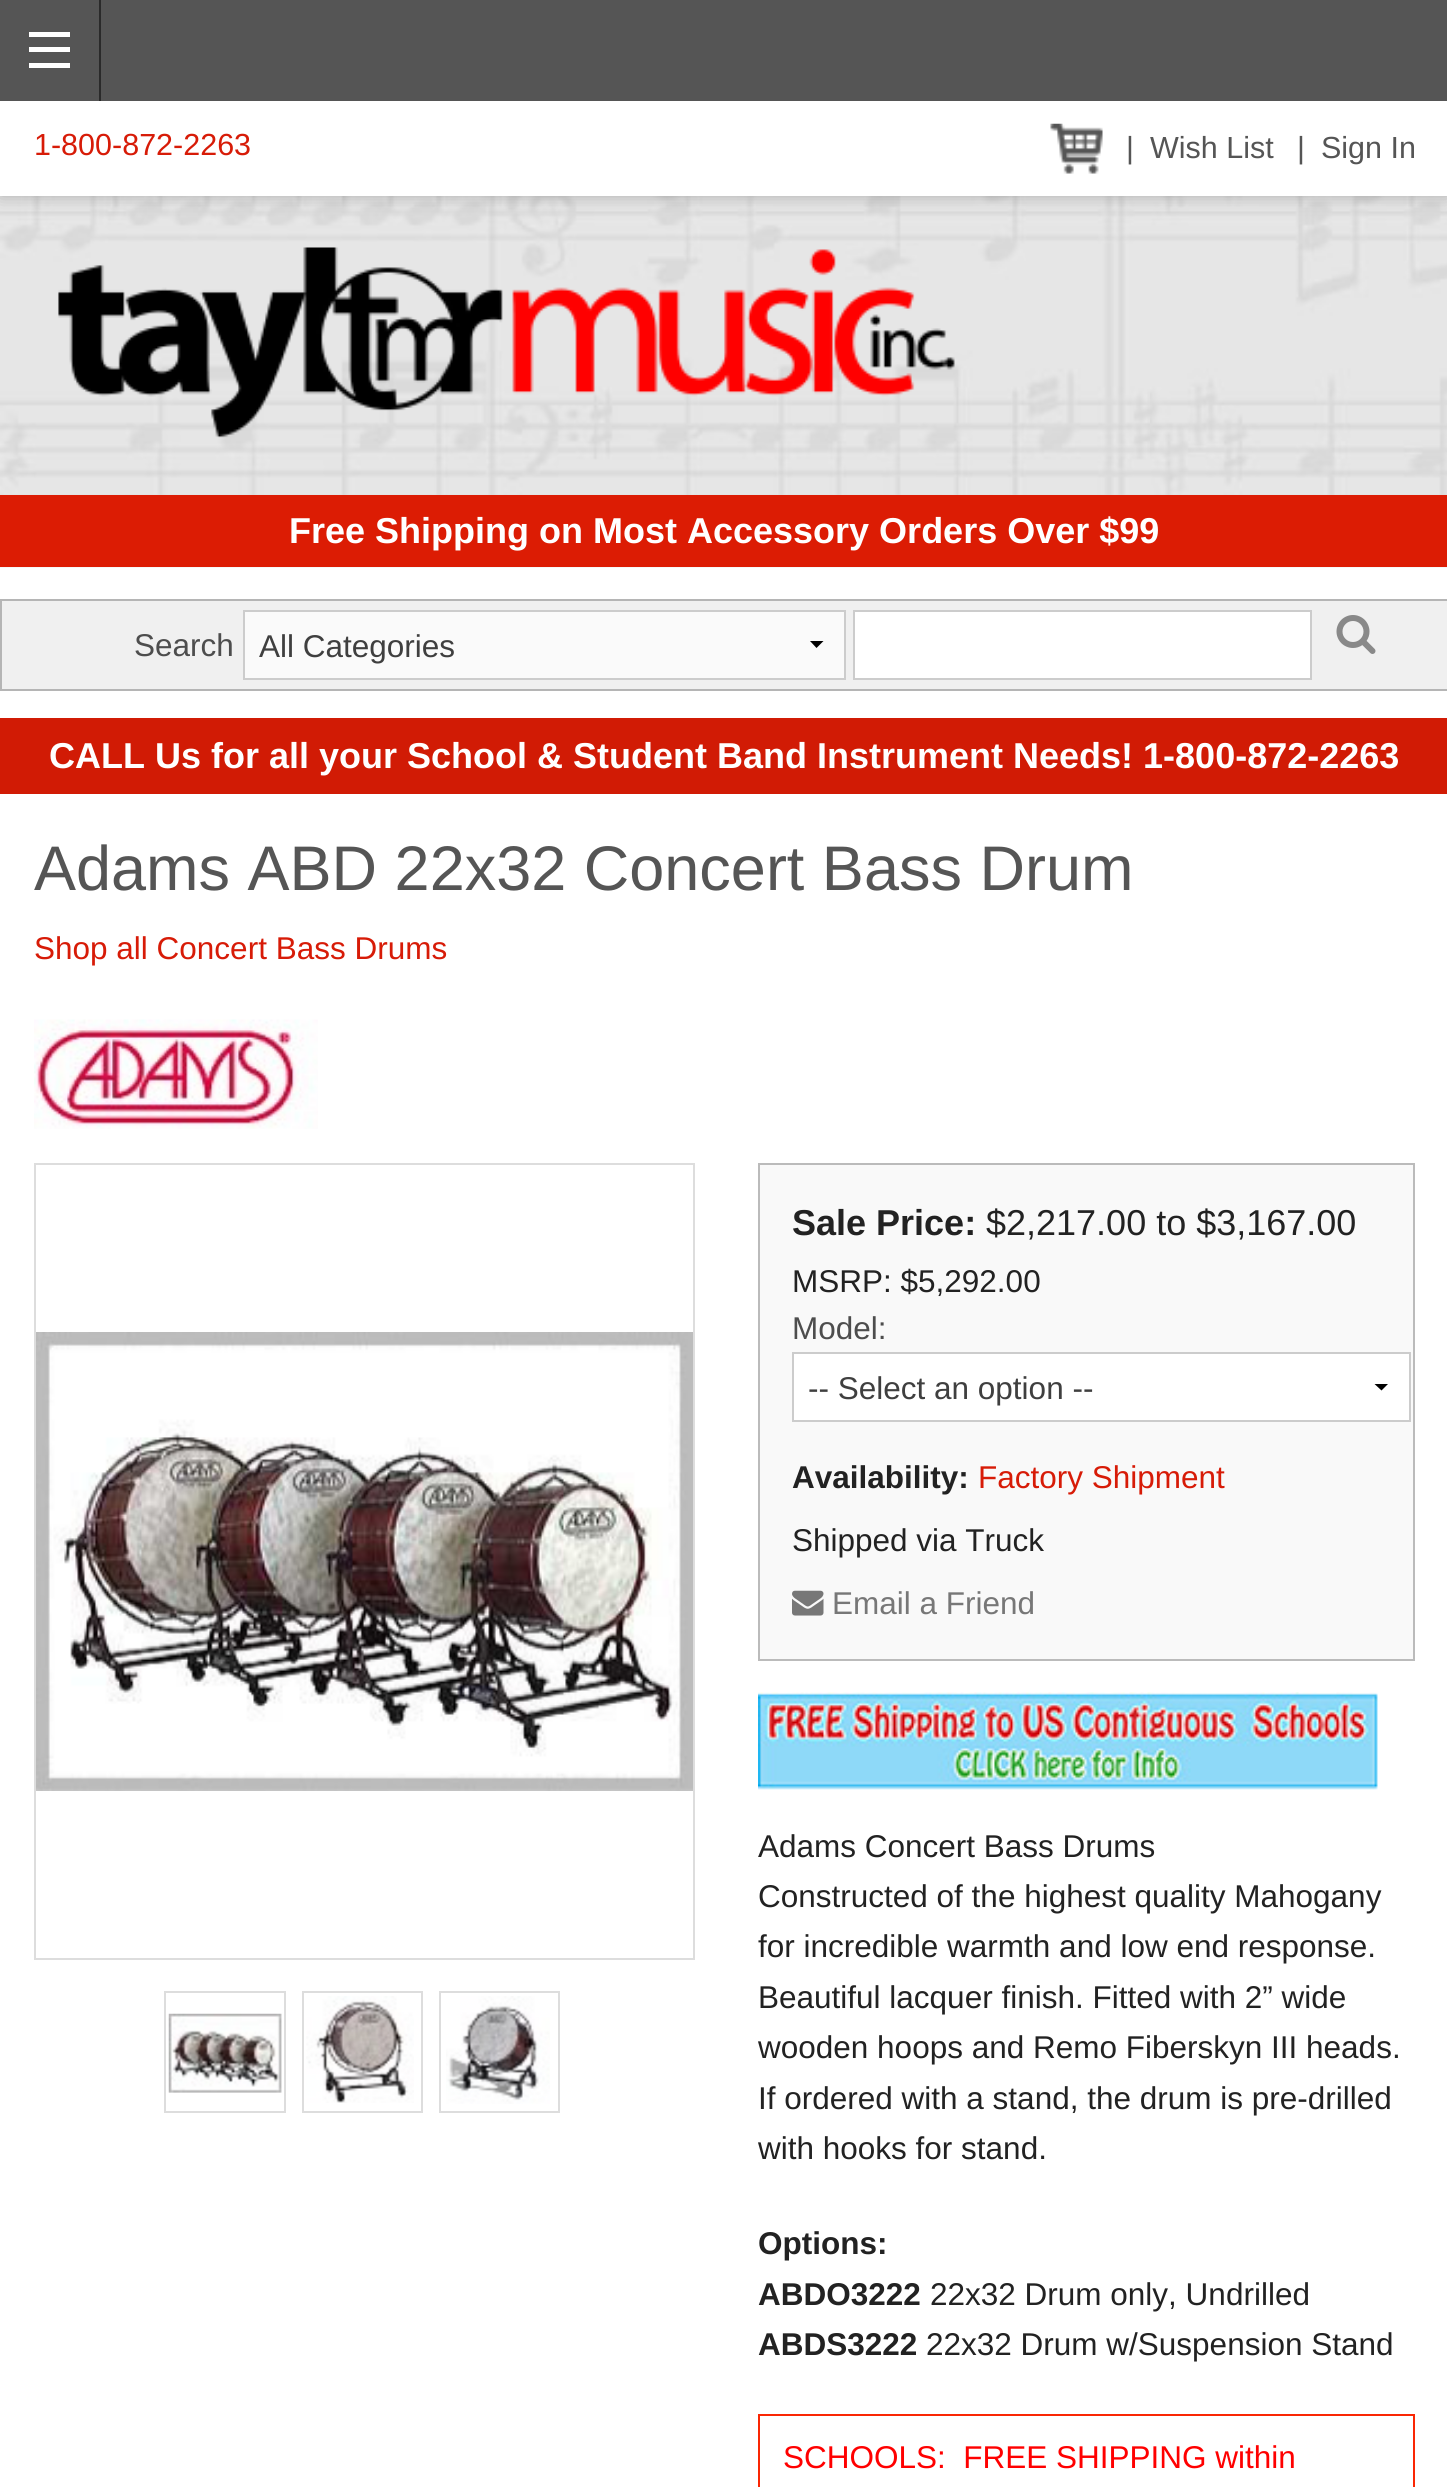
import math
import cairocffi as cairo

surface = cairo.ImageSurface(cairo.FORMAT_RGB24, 1447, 2487)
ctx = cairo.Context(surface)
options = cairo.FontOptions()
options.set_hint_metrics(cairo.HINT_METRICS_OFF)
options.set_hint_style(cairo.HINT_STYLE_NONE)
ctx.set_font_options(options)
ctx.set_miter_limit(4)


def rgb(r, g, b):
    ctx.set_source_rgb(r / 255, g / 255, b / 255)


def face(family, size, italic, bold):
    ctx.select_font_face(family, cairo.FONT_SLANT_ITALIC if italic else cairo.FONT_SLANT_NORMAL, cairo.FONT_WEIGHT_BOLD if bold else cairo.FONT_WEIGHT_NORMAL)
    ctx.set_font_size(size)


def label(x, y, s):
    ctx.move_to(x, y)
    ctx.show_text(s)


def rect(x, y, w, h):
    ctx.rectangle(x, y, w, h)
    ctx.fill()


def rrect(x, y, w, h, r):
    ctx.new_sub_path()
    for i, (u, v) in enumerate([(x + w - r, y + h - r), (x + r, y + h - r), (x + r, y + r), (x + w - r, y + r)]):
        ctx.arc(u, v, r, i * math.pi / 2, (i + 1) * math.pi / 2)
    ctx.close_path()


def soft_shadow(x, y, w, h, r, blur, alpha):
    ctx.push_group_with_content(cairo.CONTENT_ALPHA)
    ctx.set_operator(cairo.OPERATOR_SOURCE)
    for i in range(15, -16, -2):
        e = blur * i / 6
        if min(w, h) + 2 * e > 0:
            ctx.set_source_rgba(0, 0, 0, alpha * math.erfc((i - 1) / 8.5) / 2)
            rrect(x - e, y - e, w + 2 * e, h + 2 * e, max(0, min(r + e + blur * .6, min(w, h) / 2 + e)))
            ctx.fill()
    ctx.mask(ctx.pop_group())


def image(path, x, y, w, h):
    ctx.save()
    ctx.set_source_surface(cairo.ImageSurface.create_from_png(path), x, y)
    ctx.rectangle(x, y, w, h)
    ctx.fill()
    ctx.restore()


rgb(255, 255, 255)
ctx.paint()
rgb(85, 85, 85)
rect(0, 0, 1447, 101)
rgb(42, 42, 42)
rect(99, 0, 2, 101)
rgb(255, 255, 255)
rect(29, 63, 41, 5)
rect(29, 47, 41, 5)
rect(29, 32, 41, 5)
image('image1.png', 0, 196, 1447, 372)
ctx.save()
ctx.rectangle(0, 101, 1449, 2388)
ctx.clip()
rgb(0, 0, 0)
soft_shadow(0, 101, 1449, 95, 0, 9, 0.25)
ctx.restore()
rect(0, 101, 1447, 95)
face('Liberation Sans', 30.5, 0, 0)
rgb(215, 27, 7)
label(34, 155, '1-800-872-2263')
image('image0.png', 1050, 123, 53, 51)
rgb(85, 85, 85)
label(1126, 158, '|')
label(1150, 158, 'Wish List')
label(1297, 158, '|')
label(1321, 158, 'Sign In')
image('image2.png', 58, 247, 897, 191)
rgb(220, 28, 4)
rect(0, 495, 1447, 72)
face('Liberation Sans', 36, 0, 1)
rgb(255, 255, 255)
label(289, 543, 'Free Shipping on Most Accessory Orders Over $99')
rgb(240, 240, 240)
ctx.rectangle(1, 600, 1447, 90)
ctx.fill_preserve()
rgb(181, 181, 181)
ctx.stroke()
face('Liberation Sans', 31.5, 0, 0)
rgb(77, 77, 77)
label(134, 656, 'Search')
rgb(250, 250, 250)
rect(245, 612, 599, 66)
rgb(0, 0, 0)
ctx.new_path()
ctx.move_to(823.5, 641)
ctx.line_to(816.5, 648)
ctx.line_to(810, 641)
ctx.close_path()
ctx.fill()
ctx.rectangle(244, 611, 601, 68)
rgb(204, 204, 204)
ctx.stroke()
rgb(63, 63, 63)
label(259, 657, 'All Categories')
rgb(255, 255, 255)
ctx.rectangle(854, 611, 457, 68)
ctx.fill_preserve()
rgb(204, 204, 204)
ctx.stroke()
image('image3.png', 1336, 615, 40, 39)
rgb(209, 27, 5)
rect(0, 718, 1447, 76)
face('Liberation Sans', 36, 0, 1)
rgb(255, 255, 255)
label(49, 768, 'CALL Us for all your School & Student Band Instrument Needs! 1-800-872-2263')
face('Liberation Sans', 63, 0, 0)
rgb(85, 85, 85)
label(34, 890, 'Adams ABD 22x32 Concert Bass Drum')
face('Liberation Sans', 31.5, 0, 0)
rgb(215, 27, 7)
label(34, 959, 'Shop all Concert Bass Drums')
image('image4.png', 34, 1019, 284, 110)
ctx.rectangle(35, 1164, 659, 795)
rgb(221, 221, 221)
ctx.stroke()
image('image5.png', 36, 1332, 657, 459)
ctx.rectangle(165, 1992, 120, 120)
ctx.stroke()
image('image6.png', 168, 2013, 114, 80)
ctx.rectangle(303, 1992, 119, 120)
ctx.stroke()
image('image7.png', 306, 1996, 108, 107)
ctx.rectangle(440, 1992, 119, 120)
ctx.stroke()
image('image8.png', 446, 1996, 104, 108)
rgb(249, 249, 249)
ctx.rectangle(759, 1164, 655, 496)
ctx.fill_preserve()
rgb(187, 187, 187)
ctx.stroke()
face('Liberation Sans', 36, 0, 1)
rgb(34, 34, 34)
label(792, 1235, 'Sale Price:')
face('Liberation Sans', 36, 0, 0)
label(986, 1235, '$2,217.00 to $3,167.00')
face('Liberation Sans', 31.5, 0, 0)
label(792, 1292, 'MSRP: $5,292.00')
rgb(77, 77, 77)
label(792, 1339, 'Model:')
rgb(255, 255, 255)
rect(794, 1354, 615, 66)
rgb(0, 0, 0)
ctx.new_path()
ctx.move_to(1388, 1384)
ctx.line_to(1381.5, 1390.5)
ctx.line_to(1374.5, 1384)
ctx.close_path()
ctx.fill()
ctx.rectangle(793, 1353, 617, 68)
rgb(204, 204, 204)
ctx.stroke()
rgb(63, 63, 63)
label(808, 1399, '-- Select an option --')
face('Liberation Sans', 31.5, 0, 1)
rgb(34, 34, 34)
label(792, 1488, 'Availability:')
face('Liberation Sans', 31.5, 0, 0)
rgb(215, 27, 7)
label(978, 1488, 'Factory Shipment')
rgb(34, 34, 34)
label(792, 1551, 'Shipped via Truck')
image('image9.png', 792, 1590, 32, 26)
rgb(119, 119, 119)
label(832, 1614, 'Email a Friend')
image('image10.png', 758, 1692, 620, 98)
rgb(34, 34, 34)
label(758, 1857, 'Adams Concert Bass Drums')
label(758, 1907, 'Constructed of the highest quality Mahogany')
label(758, 1957, 'for incredible warmth and low end response.')
label(758, 2008, 'Beautiful lacquer finish. Fitted with 2” wide')
label(758, 2058, 'wooden hoops and Remo Fiberskyn III heads.')
label(758, 2109, 'If ordered with a stand, the drum is pre-drilled')
label(758, 2159, 'with hooks for stand.')
face('Liberation Sans', 31.5, 0, 1)
label(758, 2254, 'Options:')
label(758, 2305, 'ABDO3222')
face('Liberation Sans', 31.5, 0, 0)
label(930, 2305, '22x32 Drum only, Undrilled')
face('Liberation Sans', 31.5, 0, 1)
label(758, 2355, 'ABDS3222')
face('Liberation Sans', 31.5, 0, 0)
label(926, 2355, '22x32 Drum w/Suspension Stand')
rgb(250, 38, 4)
rect(758, 2414, 657, 2)
rect(1413, 2414, 2, 73)
rect(758, 2414, 2, 73)
rgb(255, 0, 0)
label(783, 2468, 'SCHOOLS:  FREE SHIPPING within')
surface.write_to_png('render.png')
